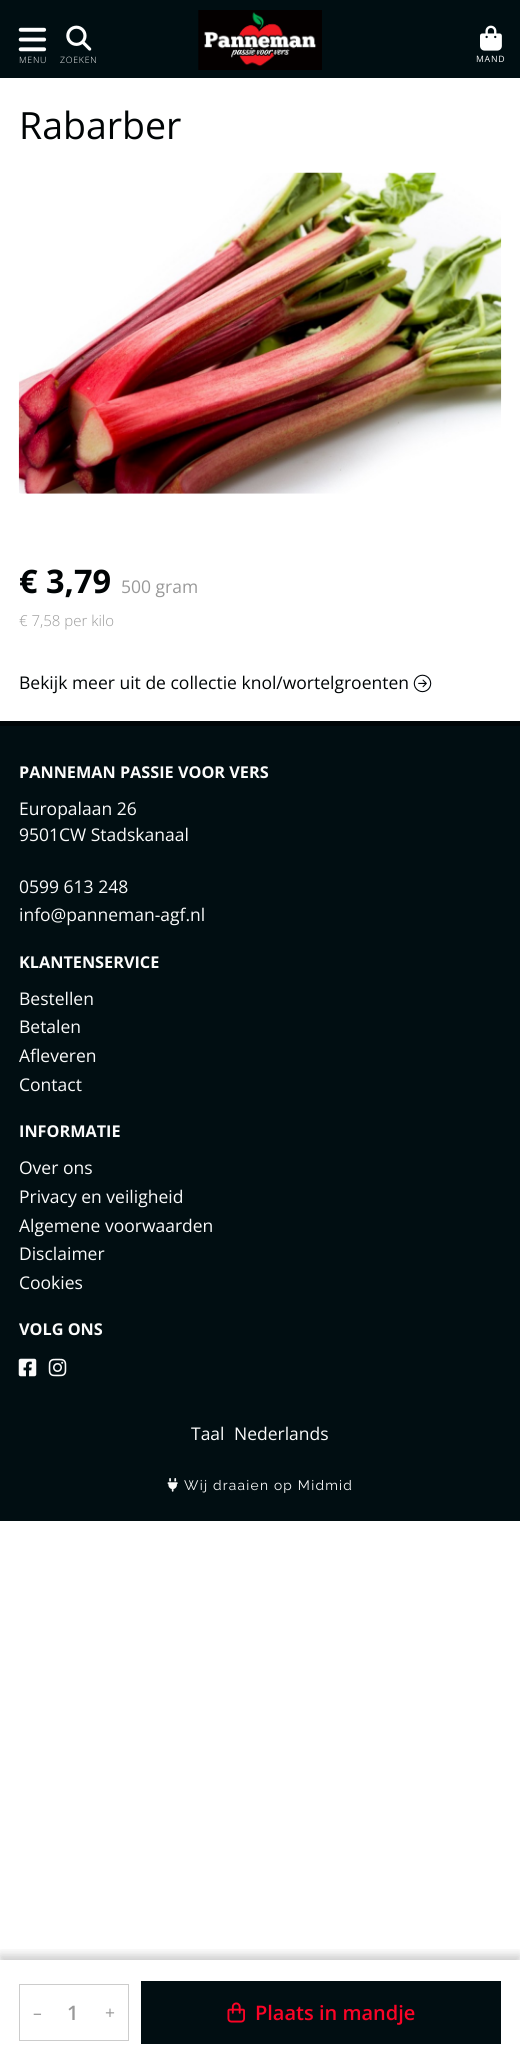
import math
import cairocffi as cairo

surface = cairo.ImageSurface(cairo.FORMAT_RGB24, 520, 2064)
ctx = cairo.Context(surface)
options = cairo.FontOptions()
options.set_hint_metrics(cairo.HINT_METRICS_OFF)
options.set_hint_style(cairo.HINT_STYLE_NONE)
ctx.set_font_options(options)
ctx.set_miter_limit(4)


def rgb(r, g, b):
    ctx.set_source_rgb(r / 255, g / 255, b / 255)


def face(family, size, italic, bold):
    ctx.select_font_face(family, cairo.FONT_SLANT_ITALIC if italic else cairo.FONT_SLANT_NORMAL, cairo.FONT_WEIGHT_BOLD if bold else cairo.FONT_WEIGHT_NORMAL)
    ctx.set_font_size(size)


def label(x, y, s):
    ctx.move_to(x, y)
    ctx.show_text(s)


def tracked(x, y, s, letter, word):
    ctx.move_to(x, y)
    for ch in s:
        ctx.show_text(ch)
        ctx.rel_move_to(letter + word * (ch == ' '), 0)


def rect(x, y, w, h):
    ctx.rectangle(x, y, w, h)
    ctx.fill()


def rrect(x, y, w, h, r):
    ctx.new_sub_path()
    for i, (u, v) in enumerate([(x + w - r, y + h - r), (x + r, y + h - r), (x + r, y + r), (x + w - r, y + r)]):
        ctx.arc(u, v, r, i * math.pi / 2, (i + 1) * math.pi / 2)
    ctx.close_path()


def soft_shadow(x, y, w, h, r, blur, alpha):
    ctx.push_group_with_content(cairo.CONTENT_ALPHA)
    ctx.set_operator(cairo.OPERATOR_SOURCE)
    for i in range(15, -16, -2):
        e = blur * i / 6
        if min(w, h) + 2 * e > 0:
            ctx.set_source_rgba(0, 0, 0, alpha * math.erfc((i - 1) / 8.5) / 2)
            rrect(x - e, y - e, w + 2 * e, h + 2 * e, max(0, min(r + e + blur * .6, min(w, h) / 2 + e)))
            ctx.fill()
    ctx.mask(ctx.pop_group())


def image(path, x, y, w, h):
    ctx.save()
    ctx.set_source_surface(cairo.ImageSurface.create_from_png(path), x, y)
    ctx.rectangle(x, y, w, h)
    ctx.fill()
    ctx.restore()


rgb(255, 255, 255)
ctx.paint()
rgb(0, 14, 18)
rect(0, 0, 520, 78)
image('image0.png', 18, 27, 29, 25)
face('Open Sans Light', 8.75, 0, 0)
rgb(251, 251, 251)
tracked(19, 63, 'MENU', 0.75, 0)
image('image1.png', 66, 25, 26, 26)
tracked(60, 63, 'ZOEKEN', 0.75, 0)
image('image2.png', 198, 10, 124, 60)
image('image3.png', 480, 25, 22, 26)
face('Open Sans', 8.75, 0, 0)
tracked(476, 62, 'MAND', 0.75, 0)
face('Open Sans', 37.5, 0, 0)
rgb(0, 4, 5)
label(19, 139, 'Rabarber')
face('Open Sans', 32.5, 0, 1)
label(19, 593, '€ 3,79')
face('Open Sans', 17.5, 0, 0)
rgb(153, 153, 153)
label(121, 593, '500 gram')
face('Open Sans Light', 15, 0, 0)
label(19, 626, '€ 7,58 per kilo')
ctx.save()
ctx.rectangle(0, 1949, 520, 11)
ctx.clip()
rgb(0, 0, 0)
soft_shadow(0, 1955, 520, 105, 0, 5, 0.2)
ctx.restore()
ctx.rectangle(19.5, 1984.5, 109, 56)
rgb(204, 204, 204)
ctx.set_line_width(1)
ctx.stroke()
face('Open Sans', 17.5, 0, 0)
rgb(153, 153, 153)
label(33, 2019, '–')
face('Open Sans SemiBold', 20, 0, 0)
label(67, 2020, '1')
face('Open Sans', 17.5, 0, 0)
label(105, 2019, '+')
rgb(1, 14, 18)
rect(141, 1981, 360, 63)
image('image4.png', 227, 2002, 18, 21)
face('Open Sans SemiBold', 20, 0, 0)
rgb(252, 3, 38)
label(255, 2020, 'Plaats in mandje')
face('Open Sans', 17.5, 0, 0)
rgb(0, 4, 5)
label(19, 689, 'Bekijk meer uit de collectie knol/wortelgroenten')
image('image5.png', 413, 674, 19, 19)
image('image6.png', 18, 172, 484, 322)
rgb(1, 14, 18)
rect(0, 726, 520, 795)
rgb(0, 6, 8)
rect(0, 721, 520, 5)
face('Open Sans', 16.25, 0, 1)
rgb(251, 251, 251)
label(19, 778, 'PANNEMAN PASSIE VOOR VERS')
face('Open Sans', 17.5, 0, 0)
label(19, 815, 'Europalaan 26')
label(19, 841, '9501CW Stadskanaal')
label(19, 893, '0599 613 248')
label(19, 921, 'info@panneman-agf.nl')
face('Open Sans', 16.25, 0, 1)
label(19, 968, 'KLANTENSERVICE')
face('Open Sans', 17.5, 0, 0)
label(19, 1005, 'Bestellen')
label(19, 1033, 'Betalen')
label(19, 1062, 'Afleveren')
label(19, 1091, 'Contact')
face('Open Sans', 16.25, 0, 1)
label(19, 1137, 'INFORMATIE')
face('Open Sans', 17.5, 0, 0)
label(19, 1174, 'Over ons')
label(19, 1203, 'Privacy en veiligheid')
label(19, 1232, 'Algemene voorwaarden')
label(19, 1260, 'Disclaimer')
label(19, 1289, 'Cookies')
face('Open Sans', 16.25, 0, 1)
label(19, 1335, 'VOLG ONS')
image('image7.png', 18, 1358, 19, 19)
image('image8.png', 48, 1358, 19, 19)
face('Open Sans', 17.5, 0, 0)
label(191, 1440, 'Taal')
label(234, 1440, 'Nederlands')
image('image9.png', 167, 1478, 11, 14)
face('Raleway', 13.75, 0, 0)
tracked(184, 1490, 'Wij draaien op Midmid', 1.25, 0)
surface.write_to_png('render.png')
